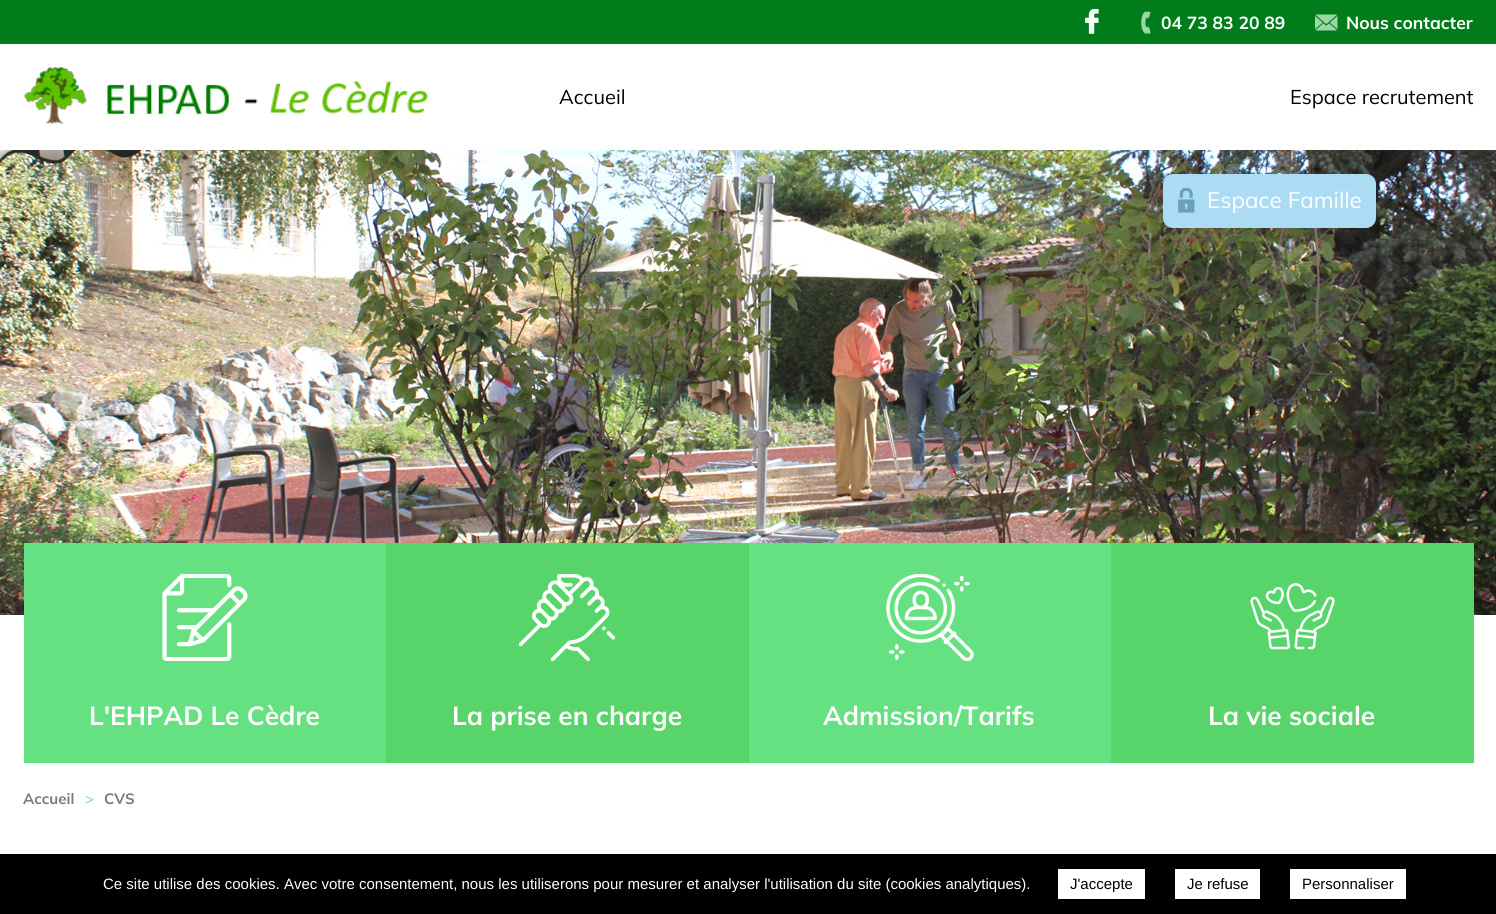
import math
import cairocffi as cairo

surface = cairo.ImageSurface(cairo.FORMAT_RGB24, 1496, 914)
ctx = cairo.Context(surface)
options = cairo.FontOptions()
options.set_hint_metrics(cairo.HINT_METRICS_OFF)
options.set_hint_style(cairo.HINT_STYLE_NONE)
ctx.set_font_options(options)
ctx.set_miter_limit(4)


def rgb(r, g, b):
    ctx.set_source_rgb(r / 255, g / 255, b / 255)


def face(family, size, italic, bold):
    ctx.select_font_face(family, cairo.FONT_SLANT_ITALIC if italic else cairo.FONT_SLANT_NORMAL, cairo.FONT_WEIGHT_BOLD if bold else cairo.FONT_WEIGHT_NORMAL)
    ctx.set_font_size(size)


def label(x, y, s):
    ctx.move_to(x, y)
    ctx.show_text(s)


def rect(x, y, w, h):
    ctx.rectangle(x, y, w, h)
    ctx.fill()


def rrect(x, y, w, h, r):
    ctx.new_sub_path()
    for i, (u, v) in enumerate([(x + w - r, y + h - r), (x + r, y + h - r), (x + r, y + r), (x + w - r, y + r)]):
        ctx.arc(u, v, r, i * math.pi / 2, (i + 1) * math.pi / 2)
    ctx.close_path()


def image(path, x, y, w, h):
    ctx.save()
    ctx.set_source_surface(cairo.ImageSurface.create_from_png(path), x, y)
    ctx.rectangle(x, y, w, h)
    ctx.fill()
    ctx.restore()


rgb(255, 255, 255)
ctx.paint()
rgb(0, 125, 26)
rect(0, 0, 1496, 44)
image('image0.png', 1085, 9, 14, 25)
image('image1.png', 1141, 11, 10, 23)
face('Mulish', 17.5, 0, 1)
rgb(255, 255, 255)
label(1161, 29, '04 73 83 20 89')
image('image2.png', 1315, 14, 23, 17)
label(1346, 29, 'Nous contacter')
image('image3.png', 23, 67, 405, 57)
face('Mulish', 20, 0, 0)
rgb(0, 0, 0)
label(559, 104, 'Accueil')
label(1290, 104, 'Espace recrutement')
image('image4.png', 0, 150, 1496, 465)
rgb(171, 220, 244)
rrect(1163, 174, 213, 54, 10)
ctx.fill()
image('image5.png', 1178, 188, 17, 25)
face('Mulish', 22.5, 0, 0)
rgb(255, 255, 255)
label(1207, 208, 'Espace Famille')
rgb(101, 225, 130)
rect(24, 543, 362, 220)
image('image6.png', 162, 574, 86, 87)
face('Mulish', 26.25, 0, 1)
rgb(255, 255, 255)
label(89, 725, 'L\'EHPAD Le Cèdre')
rgb(88, 213, 106)
rect(386, 543, 363, 220)
image('image7.png', 519, 574, 96, 87)
rgb(255, 255, 255)
label(452, 725, 'La prise en charge')
rgb(101, 225, 130)
rect(749, 543, 362, 220)
image('image8.png', 886, 574, 88, 87)
rgb(255, 255, 255)
label(823, 725, 'Admission/Tarifs')
rgb(88, 213, 106)
rect(1111, 543, 363, 220)
image('image9.png', 1250, 583, 85, 67)
rgb(255, 255, 255)
label(1208, 725, 'La vie sociale')
face('Mulish', 15, 0, 1)
rgb(123, 123, 123)
label(23, 804, 'Accueil')
face('Mulish', 15, 0, 0)
rgb(101, 225, 130)
label(85, 804, '>')
face('Mulish', 15, 0, 1)
rgb(123, 123, 123)
label(104, 804, 'CVS')
rgb(0, 0, 0)
rect(0, 854, 1496, 60)
face('Liberation Sans', 15, 0, 0)
rgb(255, 255, 255)
label(103, 889, 'Ce site utilise des cookies. Avec votre consentement, nous les utiliserons pour mesurer et analyser l\'utilisation du site (cookies analytiques).')
rect(1058, 869, 87, 30)
rgb(0, 0, 0)
label(1070, 889, 'J\'accepte')
rgb(255, 255, 255)
rect(1175, 869, 85, 30)
rgb(0, 0, 0)
label(1187, 889, 'Je refuse')
rgb(255, 255, 255)
rect(1290, 869, 116, 30)
rgb(0, 0, 0)
label(1302, 889, 'Personnaliser')
surface.write_to_png('render.png')
